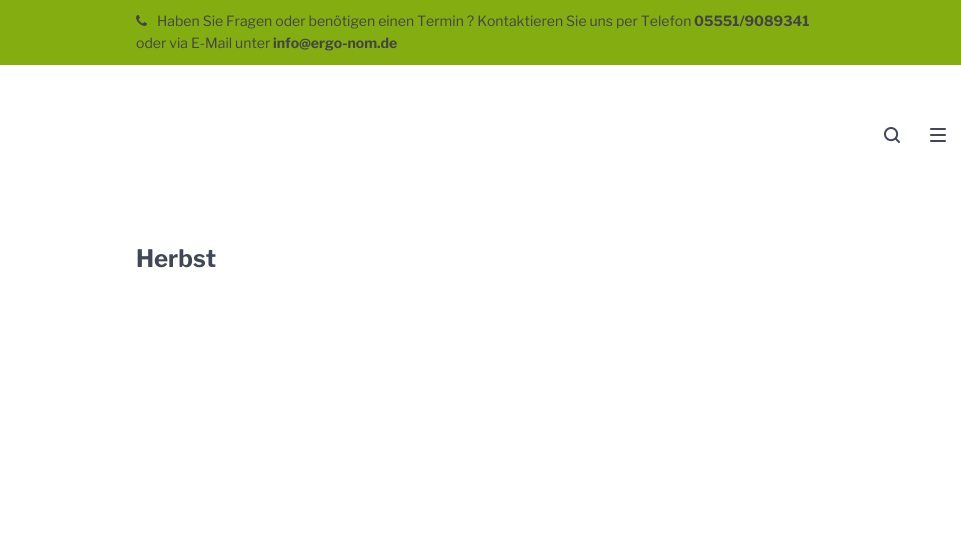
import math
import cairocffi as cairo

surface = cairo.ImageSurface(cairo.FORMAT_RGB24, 961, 544)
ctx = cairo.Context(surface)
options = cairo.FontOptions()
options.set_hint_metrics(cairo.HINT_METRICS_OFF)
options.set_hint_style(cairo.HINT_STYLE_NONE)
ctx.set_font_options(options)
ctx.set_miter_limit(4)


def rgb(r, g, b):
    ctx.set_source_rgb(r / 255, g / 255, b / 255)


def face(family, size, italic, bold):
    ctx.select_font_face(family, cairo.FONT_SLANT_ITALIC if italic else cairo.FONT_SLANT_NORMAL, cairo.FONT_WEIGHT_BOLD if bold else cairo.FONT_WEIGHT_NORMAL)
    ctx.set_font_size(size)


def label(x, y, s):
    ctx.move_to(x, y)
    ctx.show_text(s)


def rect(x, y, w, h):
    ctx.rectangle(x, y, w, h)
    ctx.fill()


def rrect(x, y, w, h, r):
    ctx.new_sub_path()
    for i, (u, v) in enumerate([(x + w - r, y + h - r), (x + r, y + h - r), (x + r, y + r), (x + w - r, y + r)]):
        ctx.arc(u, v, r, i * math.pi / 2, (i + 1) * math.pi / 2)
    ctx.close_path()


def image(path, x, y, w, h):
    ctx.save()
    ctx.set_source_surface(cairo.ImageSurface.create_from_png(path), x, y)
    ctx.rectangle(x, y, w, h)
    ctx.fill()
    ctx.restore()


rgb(255, 255, 255)
ctx.paint()
rgb(131, 173, 17)
rect(0, 0, 961, 65)
image('image0.png', 136, 15, 11, 11)
face('Libre Franklin', 14, 0, 0)
rgb(68, 68, 68)
label(157, 26, 'Haben Sie Fragen oder benötigen einen Termin ? Kontaktieren Sie uns per Telefon')
face('Libre Franklin', 14, 0, 1)
label(694, 26, '05551/9089341')
face('Libre Franklin', 14, 0, 0)
label(136, 48, 'oder via E-Mail unter')
face('Libre Franklin', 14, 0, 1)
label(273, 48, 'info@ergo-nom.de')
image('image1.png', 884, 127, 16, 16)
rgb(65, 71, 86)
rrect(930, 134, 16, 2, 1)
ctx.fill()
rrect(930, 128, 16, 2, 1)
ctx.fill()
rrect(930, 140, 16, 2, 1)
ctx.fill()
face('Libre Franklin', 24, 0, 1)
label(136, 267, 'Herbst')
surface.write_to_png('render.png')
